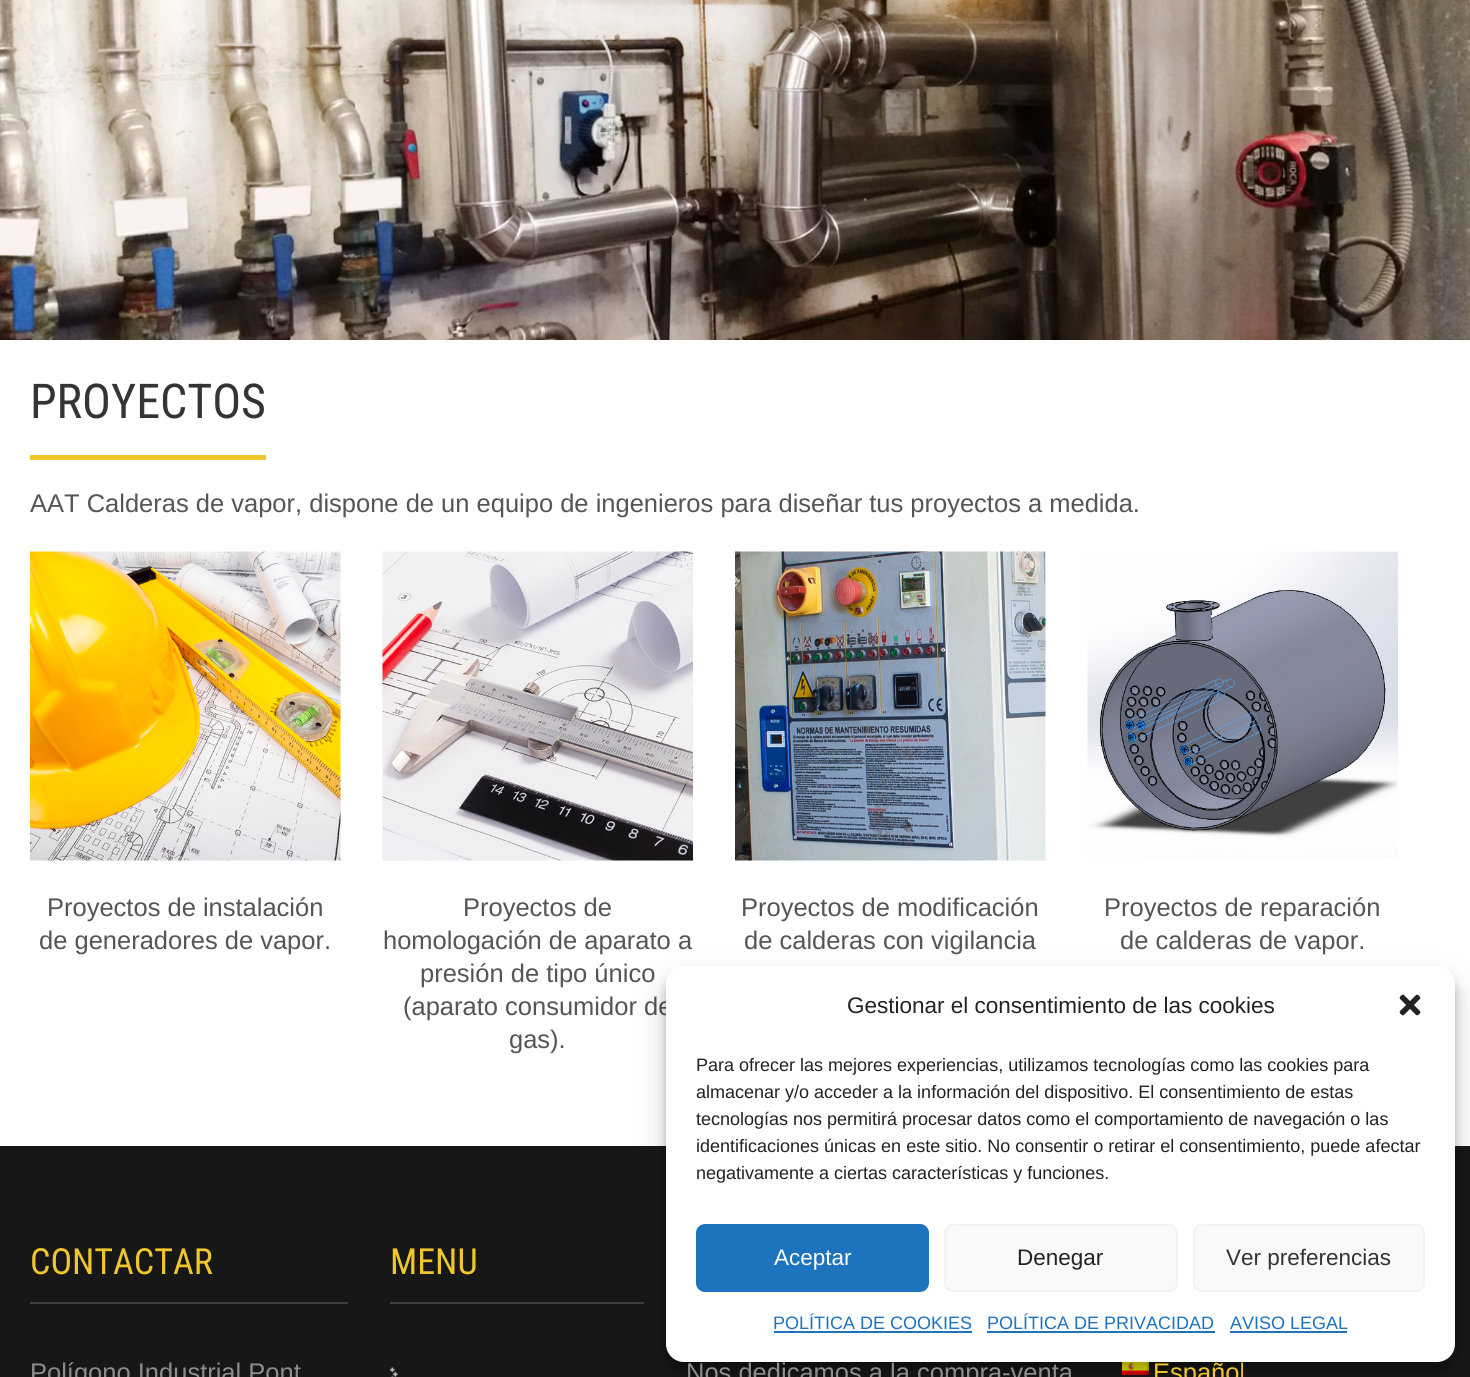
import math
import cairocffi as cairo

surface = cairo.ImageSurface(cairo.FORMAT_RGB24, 1470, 1377)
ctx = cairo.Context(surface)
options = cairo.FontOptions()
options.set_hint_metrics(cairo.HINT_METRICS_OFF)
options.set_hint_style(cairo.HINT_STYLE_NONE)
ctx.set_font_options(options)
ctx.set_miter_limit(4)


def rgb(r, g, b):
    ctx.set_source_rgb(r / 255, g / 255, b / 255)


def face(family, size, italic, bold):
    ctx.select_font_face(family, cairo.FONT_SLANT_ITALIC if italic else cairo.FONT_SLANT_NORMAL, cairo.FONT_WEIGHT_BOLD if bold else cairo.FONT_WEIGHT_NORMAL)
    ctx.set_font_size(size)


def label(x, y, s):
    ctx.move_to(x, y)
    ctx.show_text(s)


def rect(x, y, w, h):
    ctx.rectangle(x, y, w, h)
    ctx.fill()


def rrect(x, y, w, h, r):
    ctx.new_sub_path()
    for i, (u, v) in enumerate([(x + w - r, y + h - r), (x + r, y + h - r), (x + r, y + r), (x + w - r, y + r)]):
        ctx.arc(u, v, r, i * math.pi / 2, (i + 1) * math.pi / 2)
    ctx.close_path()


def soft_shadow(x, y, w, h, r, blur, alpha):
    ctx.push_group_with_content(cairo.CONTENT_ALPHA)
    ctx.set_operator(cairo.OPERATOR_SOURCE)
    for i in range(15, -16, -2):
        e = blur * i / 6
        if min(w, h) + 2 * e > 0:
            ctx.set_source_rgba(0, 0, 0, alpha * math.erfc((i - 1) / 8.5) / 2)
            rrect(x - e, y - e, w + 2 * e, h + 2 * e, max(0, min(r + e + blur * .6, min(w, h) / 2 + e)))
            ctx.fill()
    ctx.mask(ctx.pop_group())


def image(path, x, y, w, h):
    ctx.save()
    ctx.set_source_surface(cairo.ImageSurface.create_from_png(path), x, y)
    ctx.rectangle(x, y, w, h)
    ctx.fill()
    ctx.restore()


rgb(255, 255, 255)
ctx.paint()
image('image0.png', 0, 0, 1470, 340)
rgb(239, 198, 44)
rect(30, 455, 236, 5)
face('Roboto Condensed', 48, 0, 0)
rgb(52, 52, 52)
label(30, 418, 'PROYECTOS')
face('Arimo', 25.5, 0, 0)
rgb(85, 85, 85)
label(30, 512, 'AAT Calderas de vapor, dispone de un equipo de ingenieros para diseñar tus proyectos a medida.')
image('image1.png', 30, 551, 311, 310)
label(47, 916, 'Proyectos de instalación')
label(39, 949, 'de generadores de vapor.')
image('image2.png', 382, 551, 311, 310)
label(463, 916, 'Proyectos de')
label(383, 949, 'homologación de aparato a')
label(420, 982, 'presión de tipo único')
label(403, 1015, '(aparato consumidor de')
label(509, 1048, 'gas).')
image('image3.png', 735, 551, 311, 310)
label(741, 916, 'Proyectos de modificación')
label(744, 949, 'de calderas con vigilancia')
image('image4.png', 1087, 551, 311, 307)
label(1104, 916, 'Proyectos de reparación')
label(1120, 949, 'de calderas de vapor.')
rgb(23, 23, 23)
rect(0, 1146, 1470, 231)
image('image7.png', 1122, 1362, 27, 13)
rgb(0, 0, 0)
soft_shadow(666, 975, 789, 396, 18, 4.5, 0.23)
rgb(63, 63, 63)
rect(390, 1302, 254, 2)
rgb(0, 0, 0)
soft_shadow(666, 981, 789, 396, 18, 15, 0.19)
rgb(255, 255, 255)
rrect(666, 966, 789, 396, 18)
ctx.fill()
face('Arimo', 22.5, 0, 0)
rgb(34, 34, 34)
label(847, 1013, 'Gestionar el consentimiento de las cookies')
image('image5.png', 1399, 994, 22, 22)
face('Arimo', 18, 0, 0)
label(696, 1071, 'Para ofrecer las mejores experiencias, utilizamos tecnologías como las cookies para')
label(696, 1098, 'almacenar y/o acceder a la información del dispositivo. El consentimiento de estas')
label(696, 1125, 'tecnologías nos permitirá procesar datos como el comportamiento de navegación o las')
label(696, 1152, 'identificaciones únicas en este sitio. No consentir o retirar el consentimiento, puede afectar')
label(696, 1179, 'negativamente a ciertas características y funciones.')
rgb(30, 115, 190)
rrect(697, 1225, 231, 66, 8)
ctx.fill_preserve()
ctx.stroke()
face('Liberation Sans', 22.5, 0, 0)
rgb(255, 255, 255)
label(774, 1265, 'Aceptar')
rgb(249, 249, 249)
rrect(945, 1225, 232, 66, 8)
ctx.fill_preserve()
rgb(242, 242, 242)
ctx.stroke()
rgb(34, 34, 34)
label(1017, 1265, 'Denegar')
rgb(249, 249, 249)
rrect(1194, 1225, 230, 66, 8)
ctx.fill_preserve()
rgb(242, 242, 242)
ctx.stroke()
rgb(52, 52, 52)
label(1226, 1265, 'Ver preferencias')
face('Arimo', 18, 0, 0)
rgb(30, 115, 190)
label(773, 1329, 'POLÍTICA DE COOKIES')
rect(774, 1331, 198, 2)
label(987, 1329, 'POLÍTICA DE PRIVACIDAD')
rect(987, 1331, 228, 2)
label(1230, 1329, 'AVISO LEGAL')
rect(1230, 1331, 117, 2)
rgb(63, 63, 63)
rect(30, 1302, 318, 2)
face('Roboto Condensed', 36, 0, 0)
rgb(239, 198, 44)
label(30, 1274, 'CONTACTAR')
face('Arimo', 25.5, 0, 0)
rgb(142, 141, 141)
label(30, 1381, 'Polígono Industrial Pont')
face('Roboto Condensed', 36, 0, 0)
rgb(239, 198, 44)
label(390, 1274, 'MENU')
image('image6.png', 390, 1367, 8, 10)
face('Arimo', 25.5, 0, 0)
rgb(142, 141, 141)
label(686, 1381, 'Nos dedicamos a la compra-venta')
rgb(239, 198, 44)
label(1153, 1381, 'Español')
surface.write_to_png('render.png')
